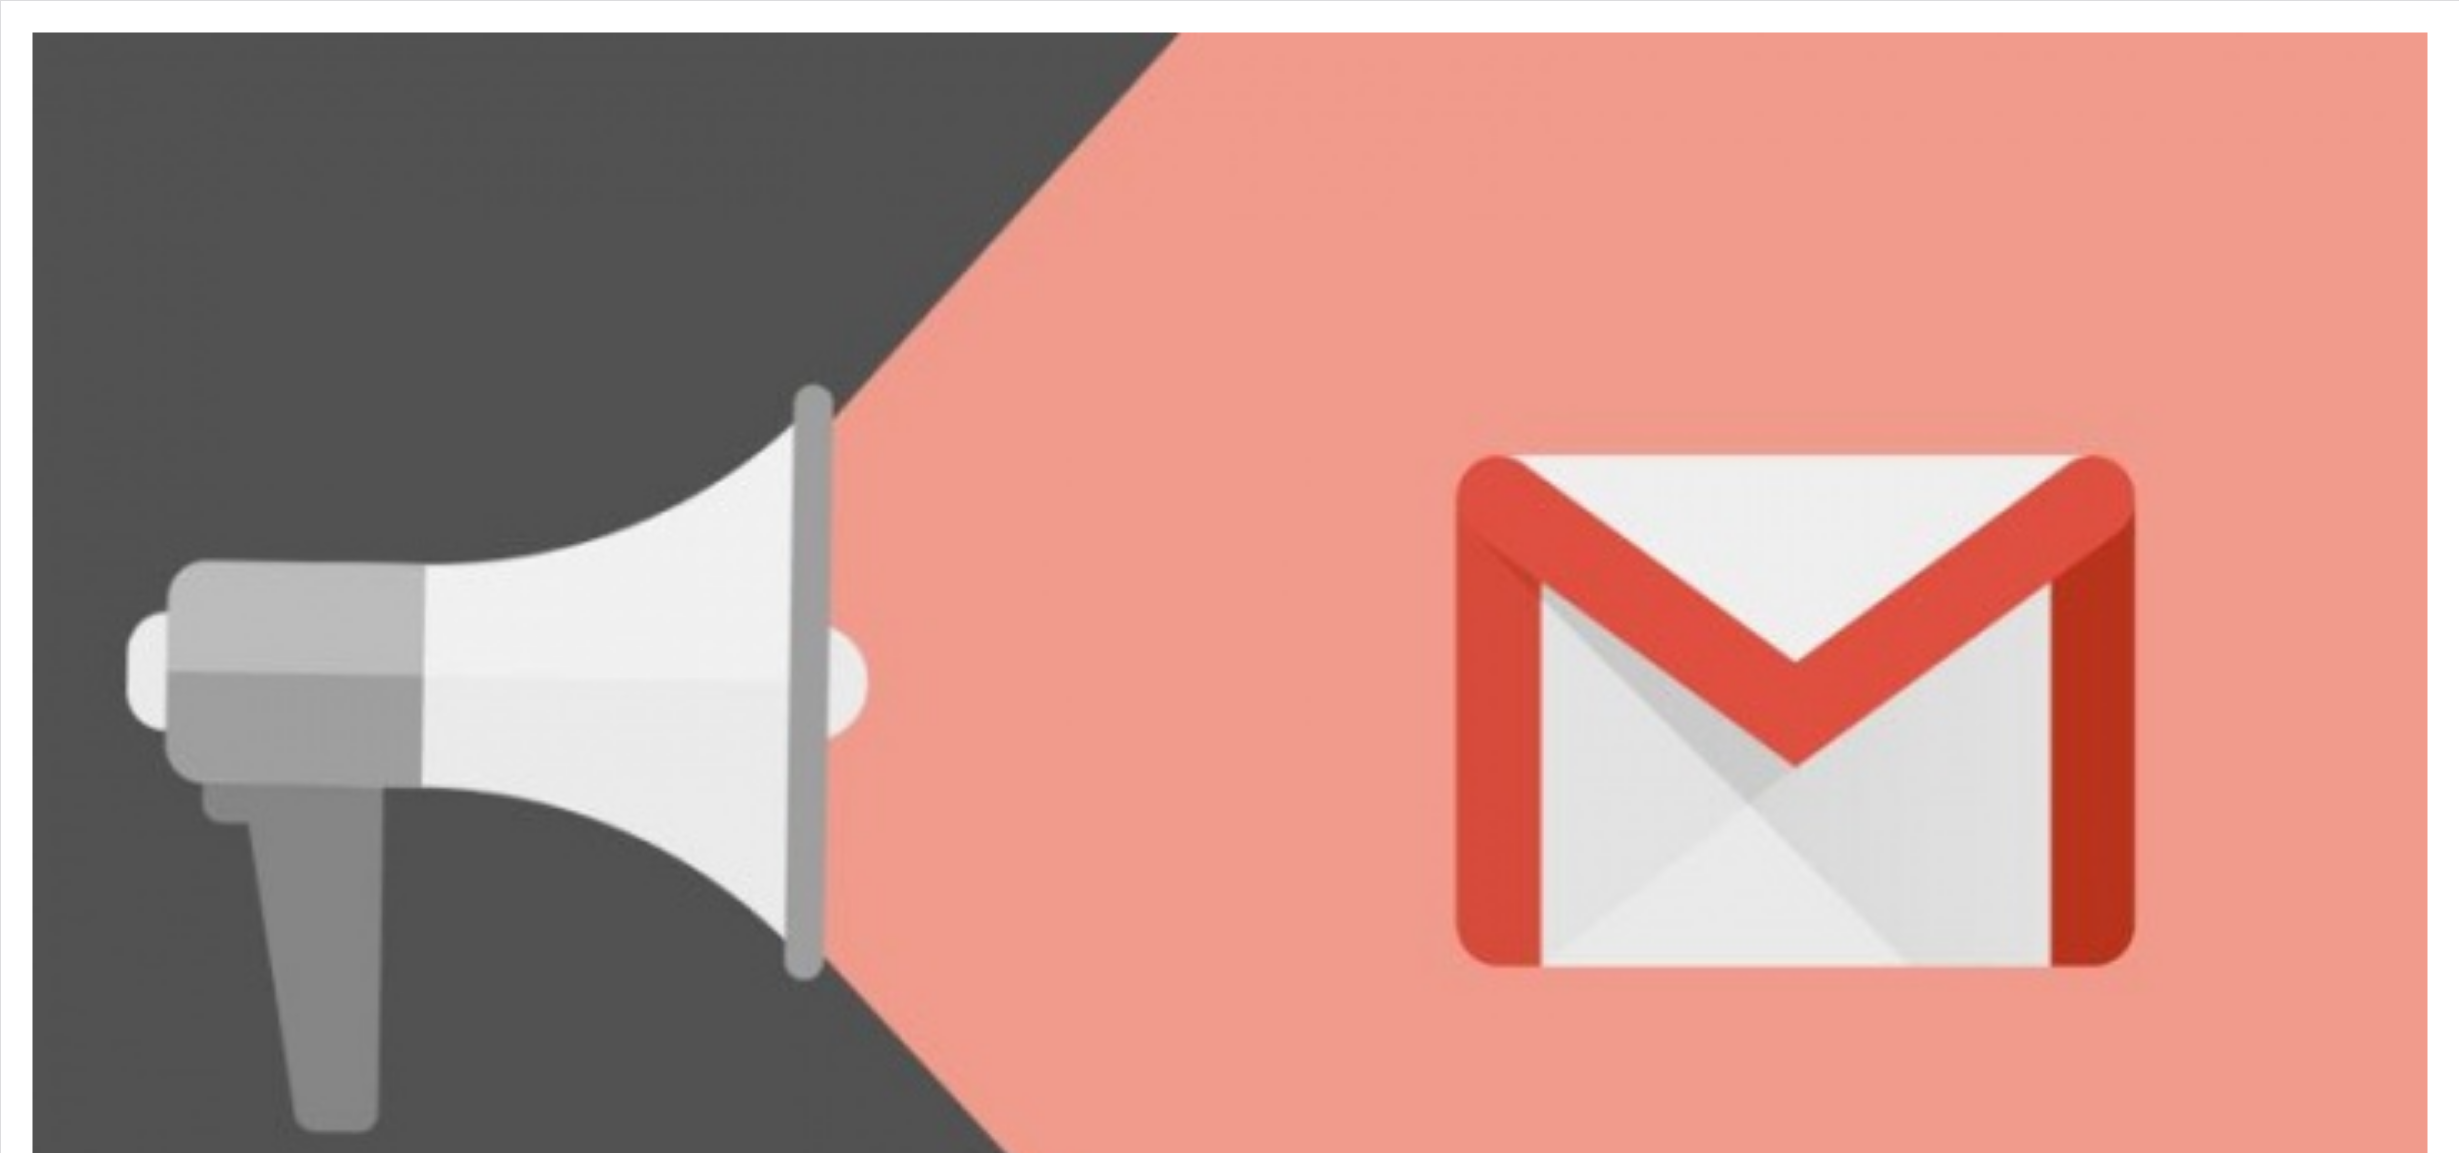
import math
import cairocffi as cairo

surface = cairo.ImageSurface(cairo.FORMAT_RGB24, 2459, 1153)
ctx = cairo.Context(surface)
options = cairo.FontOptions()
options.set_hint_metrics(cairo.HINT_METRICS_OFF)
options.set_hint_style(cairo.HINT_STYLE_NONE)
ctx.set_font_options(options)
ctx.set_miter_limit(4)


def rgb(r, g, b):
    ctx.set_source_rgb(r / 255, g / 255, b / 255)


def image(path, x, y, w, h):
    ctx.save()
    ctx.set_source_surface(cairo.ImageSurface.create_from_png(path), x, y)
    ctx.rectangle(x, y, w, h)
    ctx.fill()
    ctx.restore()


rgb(255, 255, 255)
ctx.paint()
ctx.rectangle(0.5, 0.5, 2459, 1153)
rgb(220, 220, 222)
ctx.set_line_width(1)
ctx.stroke()
image('image0.png', 32, 32, 2396, 1121)
surface.write_to_png('render.png')
